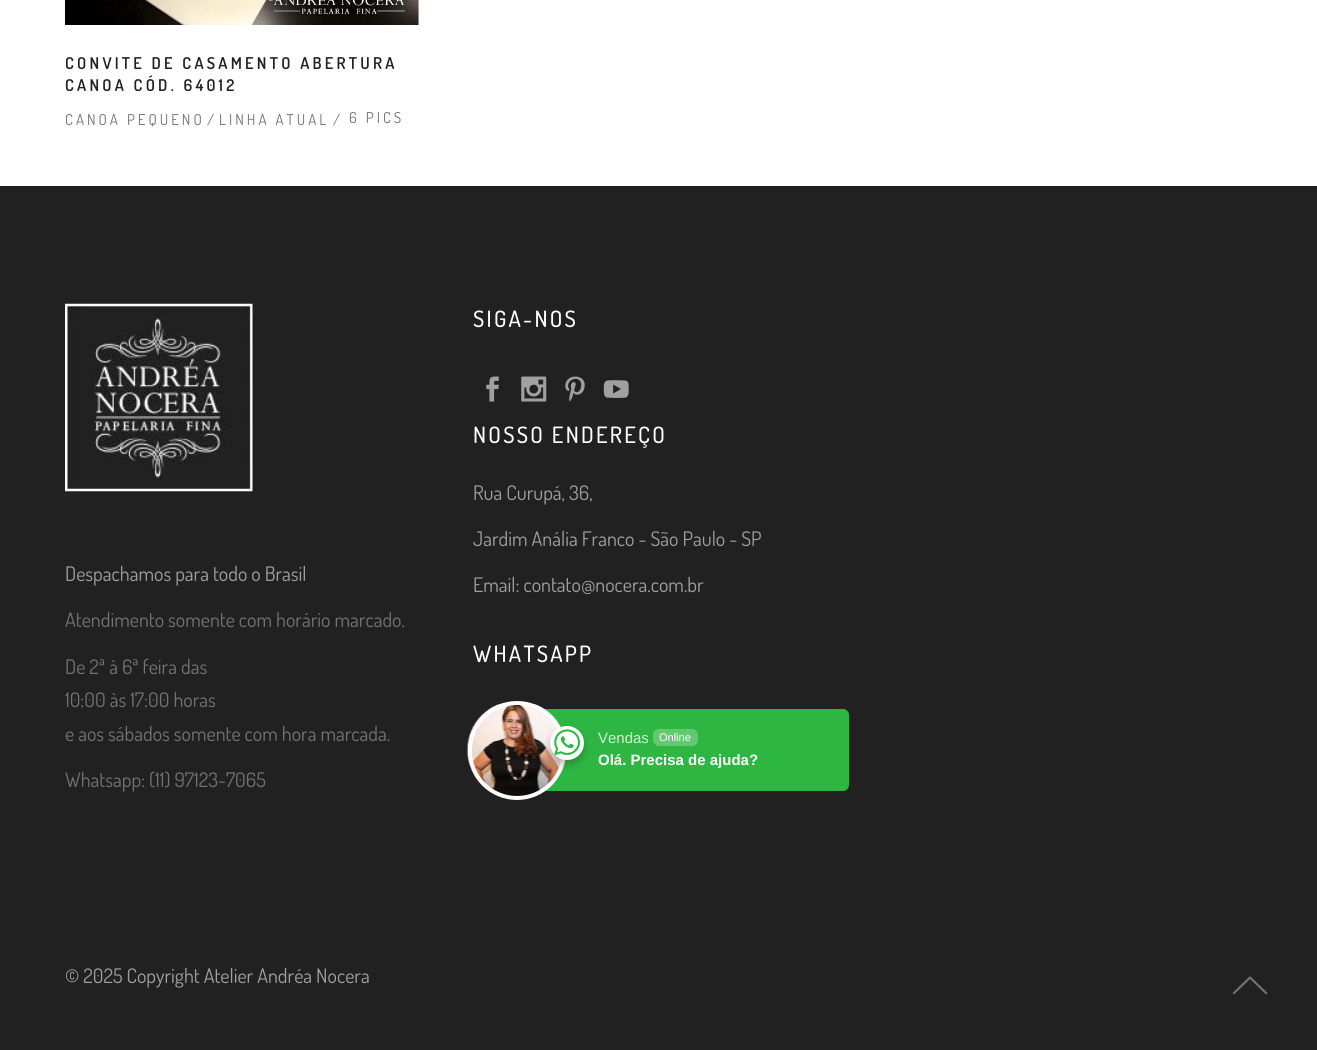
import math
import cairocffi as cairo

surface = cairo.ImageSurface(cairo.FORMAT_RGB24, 1317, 1050)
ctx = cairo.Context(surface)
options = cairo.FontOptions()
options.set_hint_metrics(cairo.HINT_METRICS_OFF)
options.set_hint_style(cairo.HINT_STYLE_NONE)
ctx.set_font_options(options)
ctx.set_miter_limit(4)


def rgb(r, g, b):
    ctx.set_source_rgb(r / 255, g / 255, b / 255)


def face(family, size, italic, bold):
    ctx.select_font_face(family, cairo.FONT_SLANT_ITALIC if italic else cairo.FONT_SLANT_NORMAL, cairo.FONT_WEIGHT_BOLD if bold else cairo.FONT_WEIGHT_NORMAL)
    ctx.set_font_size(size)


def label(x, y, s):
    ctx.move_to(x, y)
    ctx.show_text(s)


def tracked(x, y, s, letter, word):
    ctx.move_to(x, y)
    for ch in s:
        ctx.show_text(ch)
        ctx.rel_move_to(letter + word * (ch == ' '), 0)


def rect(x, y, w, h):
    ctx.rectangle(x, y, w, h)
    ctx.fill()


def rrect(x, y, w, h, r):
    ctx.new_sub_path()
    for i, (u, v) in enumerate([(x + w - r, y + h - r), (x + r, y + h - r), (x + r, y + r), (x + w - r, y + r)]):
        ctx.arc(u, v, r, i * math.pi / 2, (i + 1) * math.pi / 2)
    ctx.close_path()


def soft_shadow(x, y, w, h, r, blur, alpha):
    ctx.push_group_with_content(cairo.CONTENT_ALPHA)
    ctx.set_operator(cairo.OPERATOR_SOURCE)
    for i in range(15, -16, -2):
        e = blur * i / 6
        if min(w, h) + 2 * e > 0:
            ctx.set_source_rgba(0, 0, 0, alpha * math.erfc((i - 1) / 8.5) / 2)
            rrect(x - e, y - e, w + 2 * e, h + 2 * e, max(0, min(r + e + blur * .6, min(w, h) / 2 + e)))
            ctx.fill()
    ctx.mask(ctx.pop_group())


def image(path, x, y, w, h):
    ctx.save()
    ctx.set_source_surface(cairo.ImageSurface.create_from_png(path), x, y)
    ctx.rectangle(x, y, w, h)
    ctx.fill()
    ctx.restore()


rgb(255, 255, 255)
ctx.paint()
image('image0.png', 65, 0, 354, 25)
face('Dosis SemiBold', 16.25, 0, 0)
rgb(33, 33, 33)
tracked(65, 69, 'CONVITE DE CASAMENTO ABERTURA', 3.25, 0)
tracked(65, 91, 'CANOA CÓD. 64012', 3.25, 0)
face('Dosis', 15, 0, 0)
rgb(115, 115, 115)
tracked(65, 125, 'CANOA PEQUENO', 3, 0)
tracked(207, 125, '/', 3, 0)
tracked(219, 125, 'LINHA ATUAL', 3, 0)
tracked(333, 125, '/', 3, 0)
tracked(349, 123, '6 PICS', 3, 0)
rgb(33, 33, 33)
rect(0, 186, 1317, 864)
image('image1.png', 65, 303, 188, 189)
face('Dosis', 20, 0, 0)
rgb(160, 160, 160)
label(65, 581, 'Despachamos para todo o Brasil')
rgb(115, 115, 115)
label(65, 627, 'Atendimento somente com horário marcado.')
label(65, 674, 'De 2ª à 6ª feira das')
label(65, 707, '10:00 às 17:00 horas')
label(65, 741, 'e aos sábados somente com hora marcada.')
label(65, 787, 'Whatsapp: (11) 97123-7065')
face('Dosis Medium', 22.5, 0, 0)
rgb(255, 255, 255)
tracked(473, 327, 'SIGA-NOS', 2.25, 0)
image('image2.png', 486, 376, 13, 26)
image('image3.png', 521, 376, 26, 26)
image('image4.png', 565, 376, 20, 26)
image('image5.png', 603, 380, 26, 18)
tracked(473, 443, 'NOSSO ENDEREÇO', 2.25, 0)
face('Dosis', 20, 0, 0)
rgb(160, 160, 160)
label(473, 500, 'Rua Curupá, 36,')
label(473, 546, 'Jardim Anália Franco - São Paulo - SP')
label(473, 592, 'Email: contato@nocera.com.br')
face('Dosis Medium', 22.5, 0, 0)
rgb(255, 255, 255)
tracked(473, 662, 'WHATSAPP', 2.25, 0)
rgb(45, 183, 66)
rrect(511, 709, 338, 82, 6)
ctx.fill()
image('image6.png', 467, 704, 99, 92)
rrect(470, 703, 94, 95, 47)
rgb(255, 255, 255)
ctx.set_line_width(4)
ctx.stroke()
rgb(39, 38, 38)
soft_shadow(550, 731, 34, 34, 17, 4, 0.3)
rgb(255, 255, 255)
ctx.arc(567, 743, 17, 0, 2 * math.pi)
ctx.fill()
image('image7.png', 554, 729, 26, 26)
face('Liberation Sans', 15, 0, 0)
rgb(213, 241, 217)
label(598, 743, 'Vendas')
rgb(98, 201, 113)
rrect(653, 729, 45, 17, 6)
ctx.fill()
face('Liberation Sans', 11, 0, 0)
rgb(255, 255, 255)
label(659, 741, 'Online')
face('Liberation Sans', 15, 0, 1)
label(598, 765, 'Olá. Precisa de ajuda?')
face('Dosis', 20, 0, 0)
rgb(160, 160, 160)
label(65, 983, '© 2025 Copyright Atelier Andréa Nocera')
rgb(115, 115, 115)
ctx.new_path()
ctx.move_to(1267.5, 993)
ctx.line_to(1266, 994.5)
ctx.line_to(1250, 979)
ctx.line_to(1234, 994.5)
ctx.line_to(1232.5, 993)
ctx.line_to(1249.5, 976.5)
ctx.line_to(1250.5, 976.5)
ctx.close_path()
ctx.fill()
surface.write_to_png('render.png')
